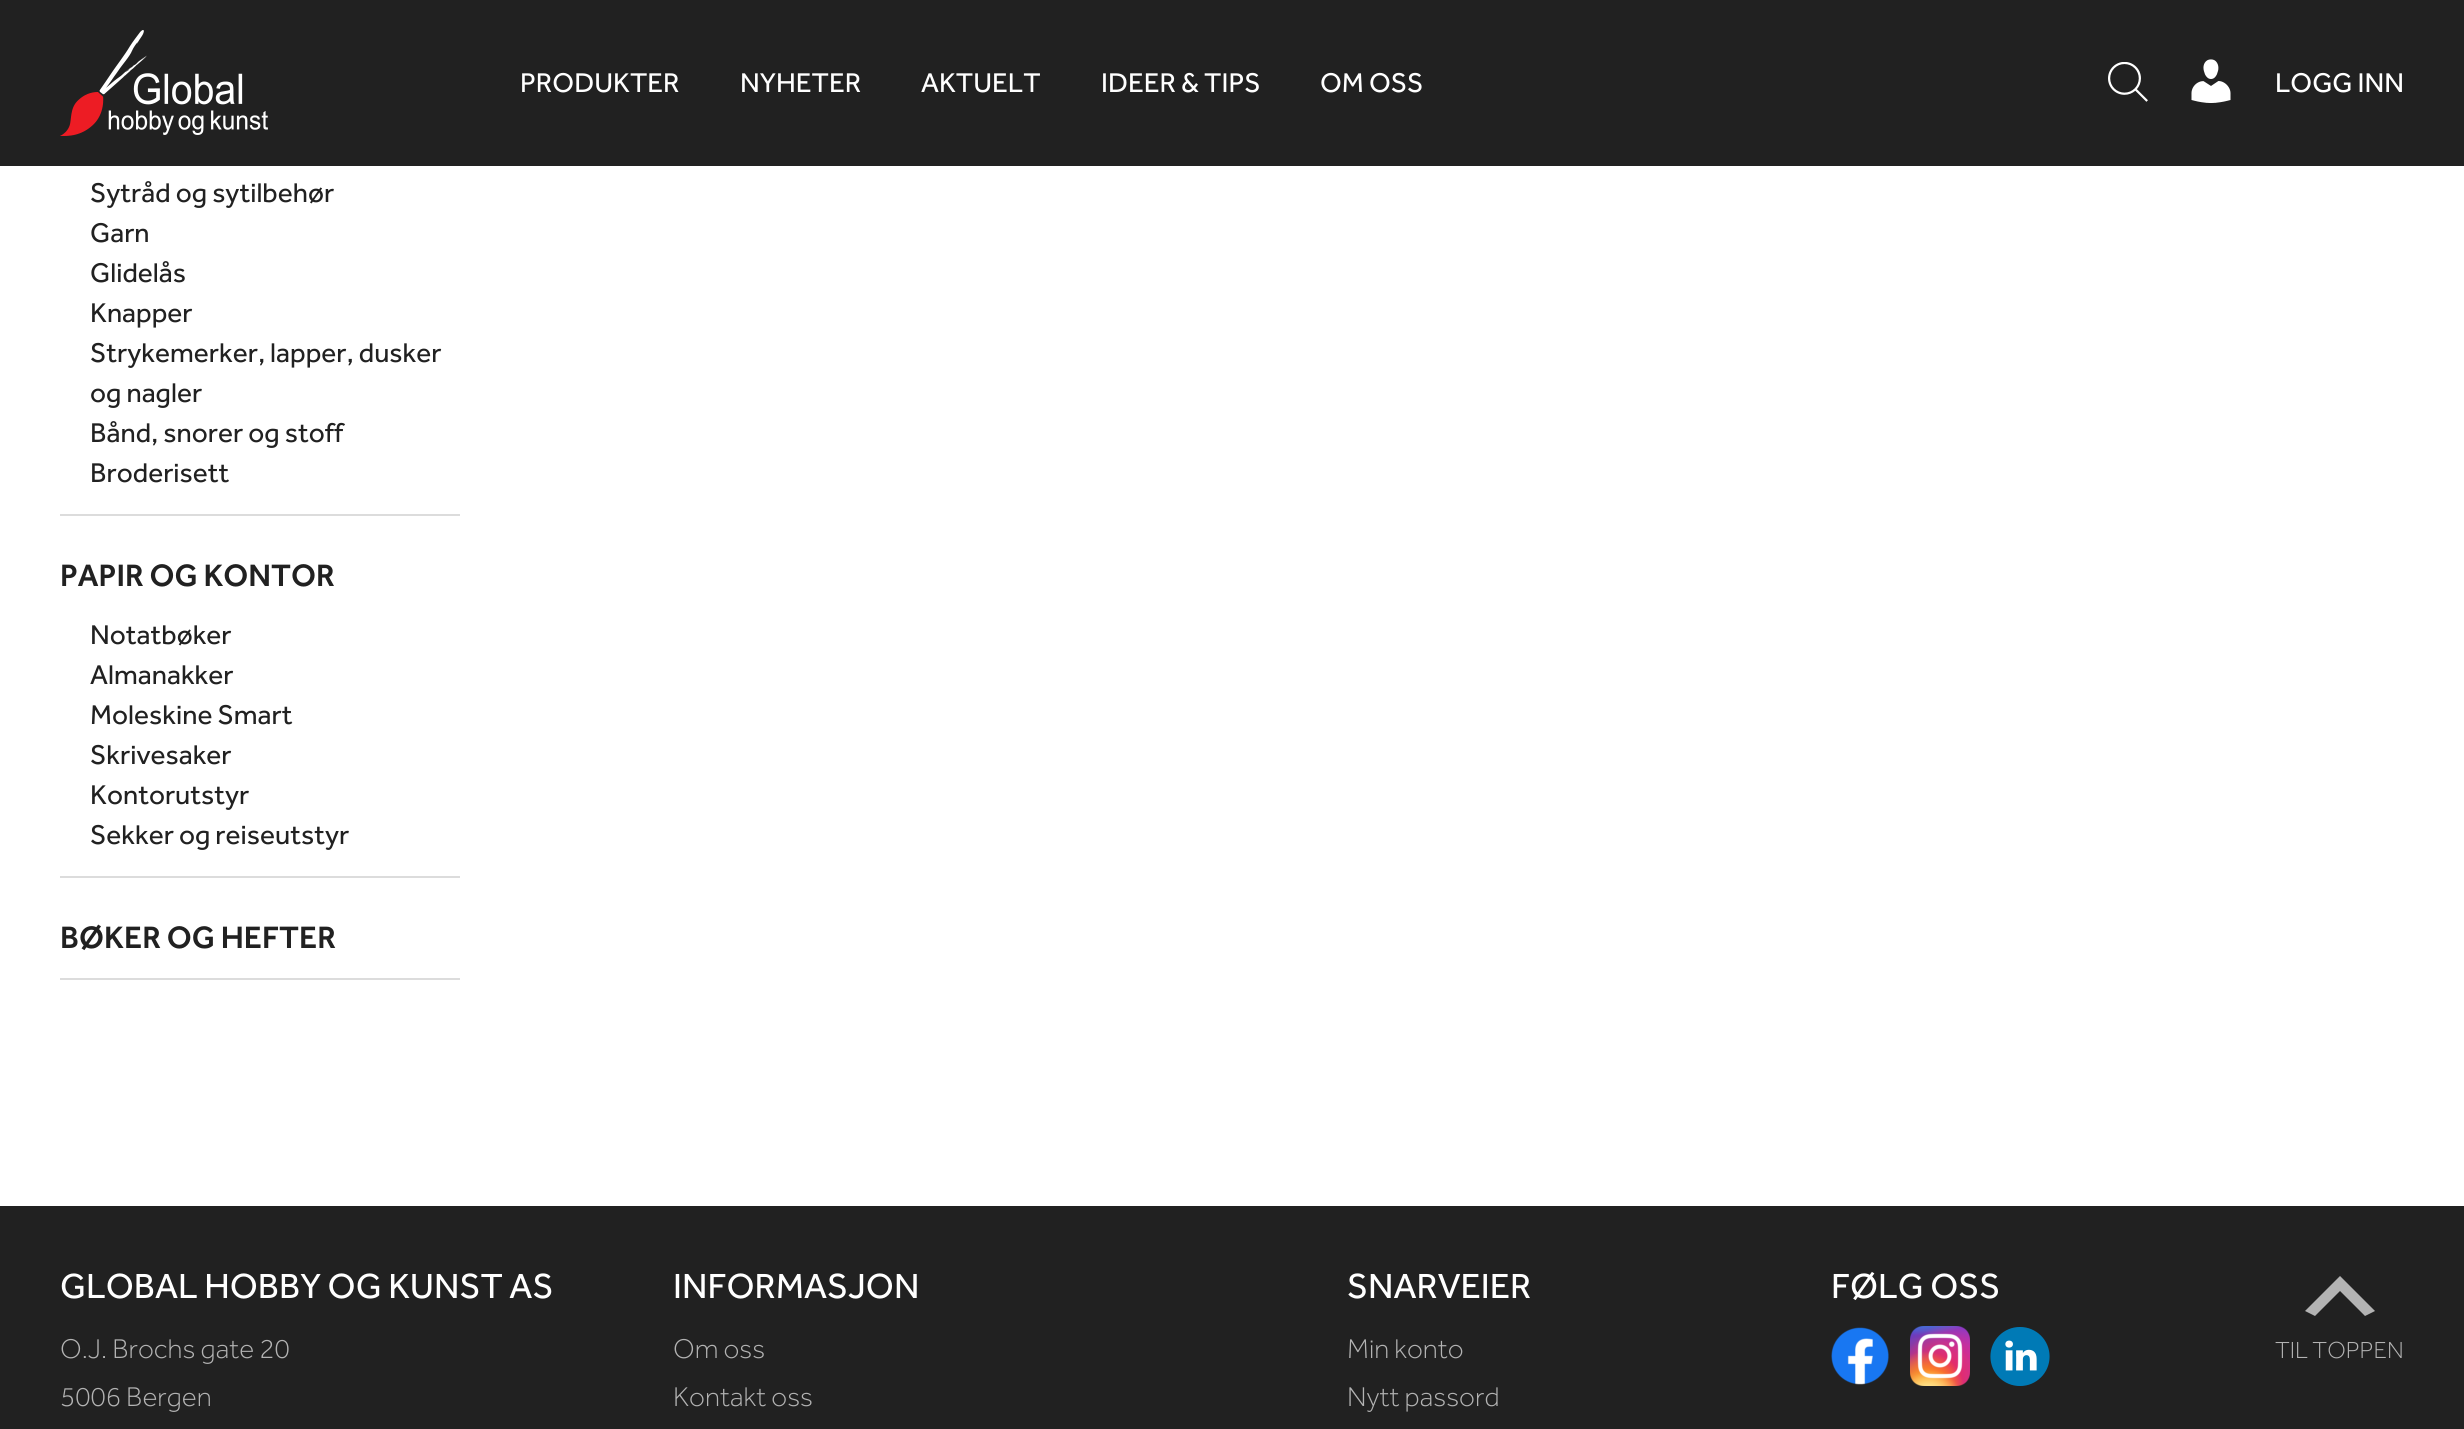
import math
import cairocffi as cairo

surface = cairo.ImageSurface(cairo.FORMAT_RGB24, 2464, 1429)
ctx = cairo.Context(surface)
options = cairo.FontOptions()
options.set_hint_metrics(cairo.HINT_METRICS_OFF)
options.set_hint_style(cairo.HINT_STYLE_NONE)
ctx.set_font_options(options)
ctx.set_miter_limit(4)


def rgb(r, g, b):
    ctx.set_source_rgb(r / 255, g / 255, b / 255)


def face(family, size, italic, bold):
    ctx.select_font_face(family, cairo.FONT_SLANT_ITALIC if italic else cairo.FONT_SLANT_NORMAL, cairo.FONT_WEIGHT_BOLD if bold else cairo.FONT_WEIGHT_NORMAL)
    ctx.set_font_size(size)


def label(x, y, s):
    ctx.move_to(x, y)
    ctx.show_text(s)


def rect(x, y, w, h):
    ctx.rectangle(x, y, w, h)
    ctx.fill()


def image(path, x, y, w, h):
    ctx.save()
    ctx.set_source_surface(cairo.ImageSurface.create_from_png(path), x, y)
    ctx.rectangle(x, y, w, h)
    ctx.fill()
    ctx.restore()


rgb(33, 33, 33)
ctx.paint()
image('image0.png', 60, 30, 208, 106)
face('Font', 28, 0, 0)
rgb(255, 255, 255)
label(520, 92, 'PRODUKTER')
label(740, 92, 'NYHETER')
label(921, 92, 'AKTUELT')
label(1101, 92, 'IDEER & TIPS')
label(1320, 92, 'OM OSS')
image('image1.png', 2108, 62, 40, 40)
image('image2.png', 2191, 59, 40, 44)
label(2275, 92, 'LOGG INN')
rect(0, 166, 2464, 1040)
rgb(220, 220, 220)
rect(60, 514, 400, 2)
rgb(33, 33, 33)
label(90, 202, 'Sytråd og sytilbehør')
label(90, 242, 'Garn')
label(90, 282, 'Glidelås')
label(90, 322, 'Knapper')
label(90, 362, 'Strykemerker, lapper, dusker')
label(90, 402, 'og nagler')
label(90, 442, 'Bånd, snorer og stoff')
label(90, 482, 'Broderisett')
rgb(220, 220, 220)
rect(60, 876, 400, 2)
face('Font Medium', 32, 0, 0)
rgb(33, 33, 33)
label(60, 586, 'PAPIR OG KONTOR')
face('Font', 28, 0, 0)
label(90, 644, 'Notatbøker')
label(90, 684, 'Almanakker')
label(90, 724, 'Moleskine Smart')
label(90, 764, 'Skrivesaker')
label(90, 804, 'Kontorutstyr')
label(90, 844, 'Sekker og reiseutstyr')
rgb(220, 220, 220)
rect(60, 978, 400, 2)
face('Font Medium', 32, 0, 0)
rgb(33, 33, 33)
label(60, 948, 'BØKER OG HEFTER')
face('Font', 36, 0, 0)
rgb(255, 255, 255)
label(60, 1298, 'GLOBAL HOBBY OG KUNST AS')
face('Font Light', 28, 0, 0)
rgb(179, 179, 179)
label(60, 1358, 'O.J. Brochs gate 20')
label(60, 1406, '5006 Bergen')
face('Font', 36, 0, 0)
rgb(255, 255, 255)
label(673, 1298, 'INFORMASJON')
face('Font Light', 28, 0, 0)
rgb(179, 179, 179)
label(673, 1358, 'Om oss')
label(673, 1406, 'Kontakt oss')
face('Font', 36, 0, 0)
rgb(255, 255, 255)
label(1347, 1298, 'SNARVEIER')
face('Font Light', 28, 0, 0)
rgb(179, 179, 179)
label(1347, 1358, 'Min konto')
label(1347, 1406, 'Nytt passord')
face('Font', 36, 0, 0)
rgb(255, 255, 255)
label(1831, 1298, 'FØLG OSS')
image('image3.png', 1831, 1327, 58, 58)
image('image4.png', 1910, 1326, 60, 60)
image('image5.png', 1990, 1327, 60, 59)
rgb(179, 179, 179)
ctx.new_path()
ctx.move_to(2365, 1316)
ctx.line_to(2340, 1291)
ctx.line_to(2315, 1316)
ctx.line_to(2305, 1311)
ctx.line_to(2340, 1276)
ctx.line_to(2375, 1311)
ctx.close_path()
ctx.fill()
face('Font Light', 24, 0, 0)
label(2275, 1358, 'TIL TOPPEN')
surface.write_to_png('render.png')
